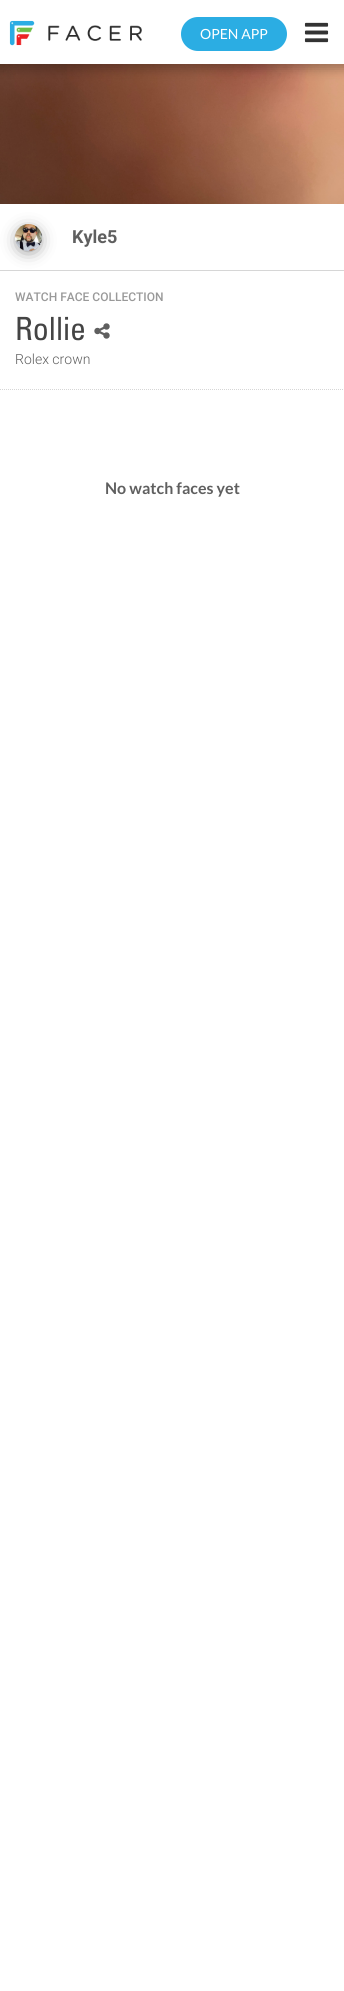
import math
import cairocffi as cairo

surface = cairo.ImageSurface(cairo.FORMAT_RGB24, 344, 1991)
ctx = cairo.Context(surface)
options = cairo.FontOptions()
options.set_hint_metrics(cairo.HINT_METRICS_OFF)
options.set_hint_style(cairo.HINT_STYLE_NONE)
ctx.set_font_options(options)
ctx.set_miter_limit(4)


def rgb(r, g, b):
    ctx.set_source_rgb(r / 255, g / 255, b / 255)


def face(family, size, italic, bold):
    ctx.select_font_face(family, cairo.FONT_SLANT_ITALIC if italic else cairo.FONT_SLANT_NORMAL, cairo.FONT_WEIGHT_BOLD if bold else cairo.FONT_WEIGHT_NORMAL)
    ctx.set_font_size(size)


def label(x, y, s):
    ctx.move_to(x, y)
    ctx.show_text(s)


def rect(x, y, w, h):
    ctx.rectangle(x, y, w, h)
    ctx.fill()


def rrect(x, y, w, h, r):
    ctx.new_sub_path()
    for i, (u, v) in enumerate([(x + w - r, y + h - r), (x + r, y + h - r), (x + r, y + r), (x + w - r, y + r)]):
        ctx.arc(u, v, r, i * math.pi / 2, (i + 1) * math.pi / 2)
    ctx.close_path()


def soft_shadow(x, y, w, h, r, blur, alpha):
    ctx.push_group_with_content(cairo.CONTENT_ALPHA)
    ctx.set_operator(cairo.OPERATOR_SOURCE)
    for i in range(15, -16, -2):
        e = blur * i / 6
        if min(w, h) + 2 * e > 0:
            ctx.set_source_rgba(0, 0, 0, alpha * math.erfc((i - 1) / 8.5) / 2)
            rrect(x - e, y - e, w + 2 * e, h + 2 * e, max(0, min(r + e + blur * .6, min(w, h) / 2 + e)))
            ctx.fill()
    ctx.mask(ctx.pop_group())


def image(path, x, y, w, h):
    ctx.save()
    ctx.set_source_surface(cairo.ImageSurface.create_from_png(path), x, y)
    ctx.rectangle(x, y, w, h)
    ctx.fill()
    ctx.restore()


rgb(255, 255, 255)
ctx.paint()
image('image2.png', 0, 64, 344, 140)
rgb(0, 0, 0)
soft_shadow(-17, -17, 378, 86, 0, 5.5, 0.28)
rgb(255, 255, 255)
rect(0, 0, 344, 64)
image('image0.png', 9, 20, 133, 26)
rgb(43, 173, 227)
rrect(181, 17, 106, 34, 17)
ctx.fill()
face('Lato', 14, 0, 0)
rgb(255, 255, 255)
label(200, 39, 'OPEN APP')
image('image1.png', 304, 22, 25, 21)
rgb(214, 214, 214)
rect(0, 270, 344, 1)
rgb(0, 0, 0)
soft_shadow(25, 237, 7, 7, 3.5, 10, 1)
image('image3.png', 15, 224, 27, 27)
face('Roboto', 18, 0, 1)
rgb(95, 95, 95)
label(72, 243, 'Kyle5')
ctx.new_path()
ctx.move_to(0, 389.5)
ctx.line_to(344, 389.5)
rgb(214, 214, 214)
ctx.set_line_width(1)
ctx.set_dash([1, 1])
ctx.stroke()
face('Roboto Medium', 12, 0, 0)
rgb(153, 153, 153)
label(15, 301, 'WATCH FACE COLLECTION')
face('Univers', 32, 0, 0)
rgb(68, 68, 68)
label(15, 340, 'Rollie')
image('image4.png', 94, 323, 16, 16)
face('Roboto Light', 14, 0, 0)
rgb(95, 95, 95)
label(15, 364, 'Rolex crown')
face('Lato', 16, 0, 1)
label(105, 494, 'No watch faces yet')
surface.write_to_png('render.png')
